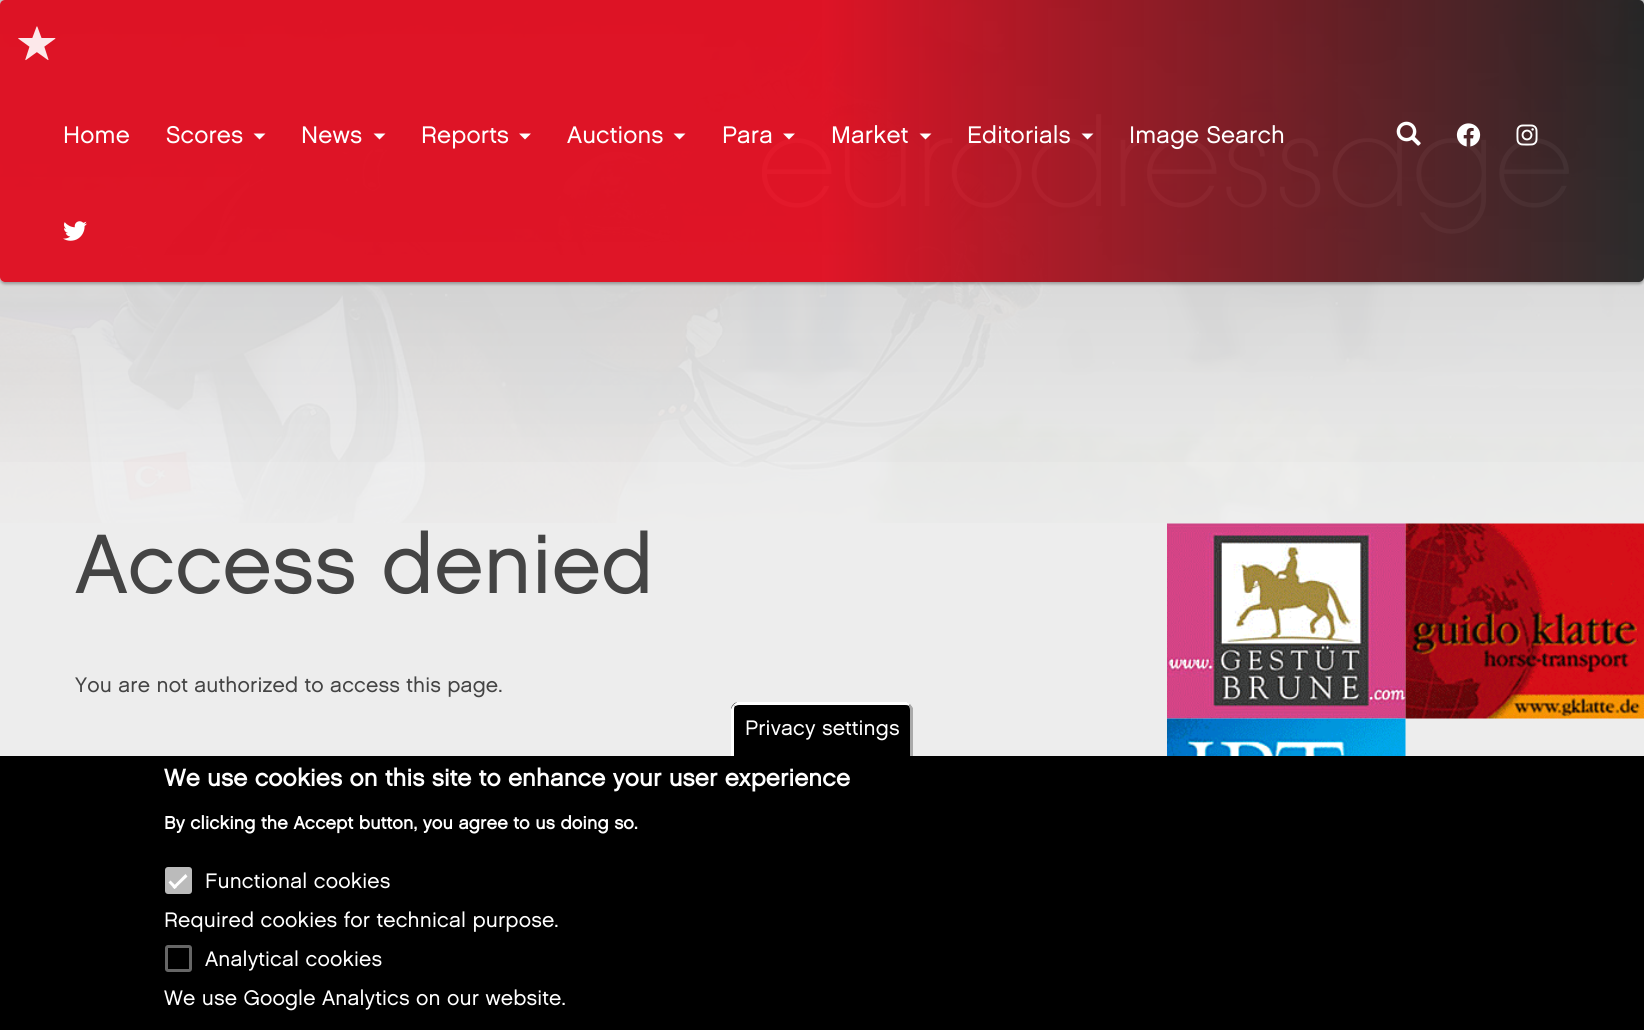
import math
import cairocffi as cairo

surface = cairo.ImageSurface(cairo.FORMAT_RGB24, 1644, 1030)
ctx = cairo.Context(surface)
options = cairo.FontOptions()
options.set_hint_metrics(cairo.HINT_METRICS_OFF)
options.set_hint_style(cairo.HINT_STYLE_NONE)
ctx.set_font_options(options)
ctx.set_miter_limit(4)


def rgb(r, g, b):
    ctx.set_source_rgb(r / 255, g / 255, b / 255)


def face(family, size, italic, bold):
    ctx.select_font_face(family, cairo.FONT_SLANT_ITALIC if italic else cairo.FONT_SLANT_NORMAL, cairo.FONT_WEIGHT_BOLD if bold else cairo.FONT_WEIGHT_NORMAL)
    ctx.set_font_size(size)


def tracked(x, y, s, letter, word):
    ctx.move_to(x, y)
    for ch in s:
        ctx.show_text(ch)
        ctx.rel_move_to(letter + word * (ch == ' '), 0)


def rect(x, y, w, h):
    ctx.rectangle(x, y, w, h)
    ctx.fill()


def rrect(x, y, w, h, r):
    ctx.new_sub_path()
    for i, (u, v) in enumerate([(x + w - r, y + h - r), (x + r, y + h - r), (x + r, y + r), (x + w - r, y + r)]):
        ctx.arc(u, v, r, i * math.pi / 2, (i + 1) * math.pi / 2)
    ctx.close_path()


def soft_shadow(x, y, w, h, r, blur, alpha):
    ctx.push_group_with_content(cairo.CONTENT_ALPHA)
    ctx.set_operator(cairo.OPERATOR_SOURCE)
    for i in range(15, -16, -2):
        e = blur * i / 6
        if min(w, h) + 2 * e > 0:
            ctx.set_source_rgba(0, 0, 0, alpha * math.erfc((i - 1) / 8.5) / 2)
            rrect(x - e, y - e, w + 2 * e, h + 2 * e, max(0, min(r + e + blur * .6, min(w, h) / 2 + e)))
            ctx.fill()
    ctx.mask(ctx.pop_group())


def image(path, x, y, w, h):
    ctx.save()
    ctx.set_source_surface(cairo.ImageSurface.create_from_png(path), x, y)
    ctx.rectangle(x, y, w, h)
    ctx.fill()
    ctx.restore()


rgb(237, 237, 237)
ctx.paint()
gradient = cairo.LinearGradient(822, 0, 822, 494)
gradient.add_color_stop_rgba(0, 0.78, 0.78, 0.78, 1)
gradient.add_color_stop_rgba(1, 0.929, 0.929, 0.929, 1)
ctx.set_source(gradient)
rect(0, 0, 1644, 462)
image('image0.png', 0, 0, 1644, 523)
image('image1.png', 762, 114, 807, 120)
ctx.save()
ctx.set_fill_rule(cairo.FILL_RULE_EVEN_ODD)
ctx.new_path()
ctx.move_to(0, 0)
ctx.line_to(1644, 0)
ctx.line_to(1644, 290)
ctx.line_to(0, 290)
ctx.close_path()
ctx.move_to(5, 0)
ctx.line_to(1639, 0)
ctx.curve_to(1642, 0, 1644, 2, 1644, 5)
ctx.line_to(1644, 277)
ctx.curve_to(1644, 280, 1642, 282, 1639, 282)
ctx.line_to(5, 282)
ctx.curve_to(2, 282, 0, 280, 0, 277)
ctx.line_to(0, 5)
ctx.curve_to(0, 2, 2, 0, 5, 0)
ctx.close_path()
ctx.clip()
rgb(0, 0, 0)
soft_shadow(0, 2, 1644, 282, 5, 1.5, 0.3)
ctx.restore()
gradient = cairo.LinearGradient(0, 141, 1644, 141)
gradient.add_color_stop_rgba(0, 0.882, 0, 0.078, 0.9)
gradient.add_color_stop_rgba(0.5, 0.882, 0, 0.078, 0.9)
gradient.add_color_stop_rgba(1, 0, 0, 0, 0.8)
ctx.set_source(gradient)
rrect(0, 0, 1644, 282, 5)
ctx.fill()
image('image2.png', 18, 26, 38, 35)
face('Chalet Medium', 24, 0, 0)
rgb(255, 255, 255)
tracked(63, 143, 'Home', 0.15, 0)
tracked(166, 143, 'Scores', 0.15, 0)
ctx.new_path()
ctx.move_to(253.5, 133.5)
ctx.line_to(265.5, 133.5)
ctx.line_to(259.5, 139.5)
ctx.close_path()
ctx.fill()
tracked(301, 143, 'News', 0.15, 0)
ctx.new_path()
ctx.move_to(373.5, 133.5)
ctx.line_to(385.5, 133.5)
ctx.line_to(379.5, 139.5)
ctx.close_path()
ctx.fill()
tracked(421, 143, 'Reports', 0.15, 0)
ctx.new_path()
ctx.move_to(519, 133.5)
ctx.line_to(531, 133.5)
ctx.line_to(525, 139.5)
ctx.close_path()
ctx.fill()
tracked(567, 143, 'Auctions', 0.15, 0)
ctx.new_path()
ctx.move_to(673.5, 133.5)
ctx.line_to(685.5, 133.5)
ctx.line_to(679.5, 139.5)
ctx.close_path()
ctx.fill()
tracked(722, 143, 'Para', 0.15, 0)
ctx.new_path()
ctx.move_to(783, 133.5)
ctx.line_to(795, 133.5)
ctx.line_to(789, 139.5)
ctx.close_path()
ctx.fill()
tracked(831, 143, 'Market', 0.15, 0)
ctx.new_path()
ctx.move_to(919.5, 133.5)
ctx.line_to(931.5, 133.5)
ctx.line_to(925.5, 139.5)
ctx.close_path()
ctx.fill()
tracked(967, 143, 'Editorials', 0.15, 0)
ctx.new_path()
ctx.move_to(1081.5, 133.5)
ctx.line_to(1093.5, 133.5)
ctx.line_to(1087.5, 139.5)
ctx.close_path()
ctx.fill()
tracked(1129, 143, 'Image Search', 0.15, 0)
image('image3.png', 1396, 121, 25, 25)
image('image4.png', 1456, 123, 25, 24)
image('image5.png', 1516, 124, 22, 22)
image('image6.png', 63, 221, 24, 20)
face('Chalet Medium', 84, 0, 0)
rgb(68, 68, 68)
tracked(75, 593, 'Access denied', 0.15, 0)
face('Chalet Medium', 21, 0, 0)
tracked(75, 692, 'You are not authorized to access this page.', 0.15, 0)
image('image7.png', 1167, 523, 239, 196)
image('image8.png', 1405, 523, 239, 196)
image('image9.png', 1167, 718, 239, 38)
rgb(0, 0, 0)
rect(0, 756, 1644, 274)
ctx.new_path()
ctx.move_to(739, 702)
ctx.line_to(904, 702)
ctx.curve_to(908.5, 702, 912, 705.5, 912, 710)
ctx.line_to(912, 756)
ctx.line_to(731, 756)
ctx.line_to(731, 710)
ctx.curve_to(731, 705.5, 734.5, 702, 739, 702)
ctx.close_path()
ctx.fill()
rgb(255, 255, 255)
ctx.new_path()
ctx.move_to(739, 705)
ctx.curve_to(737, 705, 736, 706, 735, 706)
ctx.line_to(733, 705)
ctx.line_to(737, 702)
ctx.line_to(907, 702)
ctx.line_to(910, 704)
ctx.line_to(909, 706)
ctx.curve_to(908, 705, 906, 705, 905, 705)
ctx.close_path()
ctx.fill()
rgb(170, 170, 170)
ctx.new_path()
ctx.move_to(913, 708)
ctx.line_to(913, 756)
ctx.line_to(910, 756)
ctx.line_to(910, 710)
ctx.curve_to(910, 708, 909, 707, 909, 706)
ctx.line_to(910, 704)
ctx.close_path()
ctx.fill()
rgb(255, 255, 255)
ctx.new_path()
ctx.move_to(731, 709)
ctx.line_to(733, 705)
ctx.line_to(735, 706)
ctx.curve_to(734, 707, 734, 709, 734, 710)
ctx.line_to(734, 756)
ctx.line_to(731, 756)
ctx.close_path()
ctx.fill()
tracked(745, 735, 'Privacy settings', 0.15, 0)
face('Chalet', 24, 0, 1)
tracked(164, 786, 'We use cookies on this site to enhance your user experience', 0.15, 0)
face('Chalet', 18, 0, 1)
tracked(164, 829, 'By clicking the Accept button, you agree to us doing so.', 0.15, 0)
rgb(187, 187, 187)
rrect(165, 867, 27, 27, 3)
ctx.fill()
rgb(255, 255, 255)
ctx.new_path()
ctx.move_to(185.5, 874)
ctx.line_to(187.5, 876.5)
ctx.line_to(174.5, 889)
ctx.line_to(172.5, 887)
ctx.close_path()
ctx.fill()
ctx.new_path()
ctx.move_to(170.5, 880.5)
ctx.line_to(177, 887)
ctx.line_to(174.5, 889)
ctx.line_to(168.5, 882.5)
ctx.close_path()
ctx.fill()
face('Chalet Medium', 21, 0, 0)
tracked(205, 888, 'Functional cookies', 0.15, 0)
tracked(164, 927, 'Required cookies for technical purpose.', 0.15, 0)
rrect(166.5, 946.5, 24, 24, 1.5)
rgb(102, 102, 102)
ctx.set_line_width(3)
ctx.stroke()
rgb(255, 255, 255)
tracked(205, 966, 'Analytical cookies', 0.15, 0)
tracked(164, 1005, 'We use Google Analytics on our website.', 0.15, 0)
surface.write_to_png('render.png')
